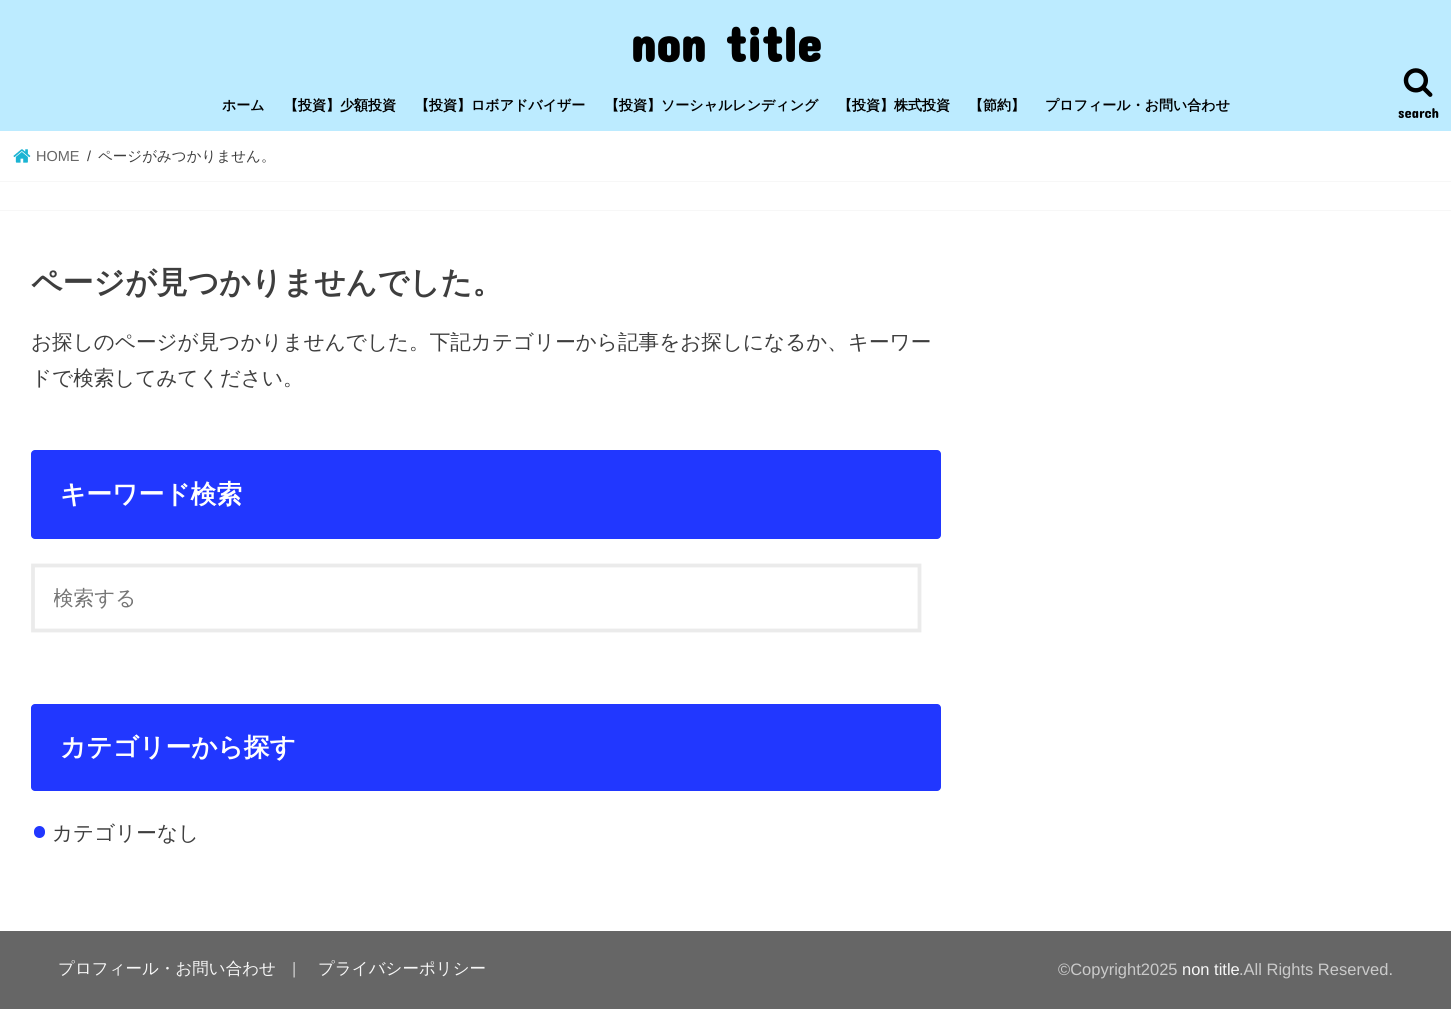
import math
import cairocffi as cairo

surface = cairo.ImageSurface(cairo.FORMAT_RGB24, 1451, 1030)
ctx = cairo.Context(surface)
options = cairo.FontOptions()
options.set_hint_metrics(cairo.HINT_METRICS_OFF)
options.set_hint_style(cairo.HINT_STYLE_NONE)
ctx.set_font_options(options)
ctx.set_miter_limit(4)


def rgb(r, g, b):
    ctx.set_source_rgb(r / 255, g / 255, b / 255)


def face(family, size, italic, bold):
    ctx.select_font_face(family, cairo.FONT_SLANT_ITALIC if italic else cairo.FONT_SLANT_NORMAL, cairo.FONT_WEIGHT_BOLD if bold else cairo.FONT_WEIGHT_NORMAL)
    ctx.set_font_size(size)


def label(x, y, s):
    ctx.move_to(x, y)
    ctx.show_text(s)


def rect(x, y, w, h):
    ctx.rectangle(x, y, w, h)
    ctx.fill()


def rrect(x, y, w, h, r):
    ctx.new_sub_path()
    for i, (u, v) in enumerate([(x + w - r, y + h - r), (x + r, y + h - r), (x + r, y + r), (x + w - r, y + r)]):
        ctx.arc(u, v, r, i * math.pi / 2, (i + 1) * math.pi / 2)
    ctx.close_path()


def soft_shadow(x, y, w, h, r, blur, alpha):
    ctx.push_group_with_content(cairo.CONTENT_ALPHA)
    ctx.set_operator(cairo.OPERATOR_SOURCE)
    for i in range(15, -16, -2):
        e = blur * i / 6
        if min(w, h) + 2 * e > 0:
            ctx.set_source_rgba(0, 0, 0, alpha * math.erfc((i - 1) / 8.5) / 2)
            rrect(x - e, y - e, w + 2 * e, h + 2 * e, max(0, min(r + e + blur * .6, min(w, h) / 2 + e)))
            ctx.fill()
    ctx.mask(ctx.pop_group())


def image(path, x, y, w, h):
    ctx.save()
    ctx.set_source_surface(cairo.ImageSurface.create_from_png(path), x, y)
    ctx.rectangle(x, y, w, h)
    ctx.fill()
    ctx.restore()


rgb(255, 255, 255)
ctx.paint()
rgb(221, 221, 221)
soft_shadow(0, 131, 1451, 50, 0, 0.5, 1)
rgb(188, 235, 255)
rect(0, 0, 1451, 131)
face('Concert One', 49.5, 0, 1)
rgb(0, 0, 0)
label(630, 62, 'non title')
face('WenQuanYi Zen Hei', 14, 0, 1)
label(222, 110, 'ホーム')
label(284, 110, '【投資】少額投資')
label(415, 110, '【投資】ロボアドバイザー')
label(605, 110, '【投資】ソーシャルレンディング')
label(838, 110, '【投資】株式投資')
label(969, 110, '【節約】')
label(1045, 110, 'プロフィール・お問い合わせ')
image('image0.png', 1403, 68, 30, 29)
face('Concert One', 14.5, 0, 0)
label(1398, 118, 'search')
rgb(255, 255, 255)
rect(0, 131, 1451, 50)
image('image1.png', 13, 149, 18, 14)
face('Liberation Sans', 14.5, 0, 0)
rgb(102, 102, 102)
label(36, 161, 'HOME')
rgb(62, 62, 62)
label(87, 161, '/')
face('WenQuanYi Zen Hei Medium', 14.5, 0, 0)
label(98, 161, 'ページがみつかりません。')
rgb(221, 221, 221)
soft_shadow(0, 211, 1451, 720, 0, 0.5, 1)
rgb(255, 255, 255)
rect(0, 211, 1451, 720)
face('WenQuanYi Zen Hei', 30.9, 0, 1)
rgb(62, 62, 62)
label(31, 293, 'ページが見つかりませんでした。')
face('WenQuanYi Zen Hei Medium', 20.6, 0, 0)
label(31, 349, 'お探しのページが見つかりませんでした。下記カテゴリーから記事をお探しになるか、キーワー')
label(31, 385, 'ドで検索してみてください。')
rgb(33, 55, 255)
rrect(31, 450, 910, 89, 4)
ctx.fill()
face('WenQuanYi Zen Hei', 25.75, 0, 1)
rgb(255, 255, 255)
label(60, 503, 'キーワード検索')
ctx.new_path()
ctx.move_to(33, 565.5)
ctx.line_to(919.5, 565.5)
ctx.line_to(919.5, 630.5)
ctx.line_to(33, 630.5)
ctx.close_path()
rgb(235, 235, 235)
ctx.set_line_width(3.8)
ctx.stroke()
ctx.save()
ctx.rectangle(54, 585, 840, 28)
ctx.clip()
face('WenQuanYi Zen Hei Medium', 20.6, 0, 0)
rgb(117, 117, 117)
label(53, 605, '検索する')
ctx.restore()
rgb(33, 55, 255)
rrect(31, 704, 910, 87, 4)
ctx.fill()
rgb(255, 255, 255)
label(60, 756, 'カテゴリーから探す')
rgb(33, 55, 255)
rrect(34, 826, 11, 12, 5.5)
ctx.fill()
face('WenQuanYi Zen Hei Medium', 20.6, 0, 0)
rgb(62, 62, 62)
label(52, 840, 'カテゴリーなし')
rgb(102, 102, 102)
rect(0, 931, 1451, 78)
face('WenQuanYi Zen Hei Medium', 16.5, 0, 0)
rgb(247, 247, 247)
label(58, 974, 'プロフィール・お問い合わせ')
face('Liberation Sans', 16.5, 0, 0)
rgb(202, 202, 202)
label(292, 974, '|')
face('WenQuanYi Zen Hei Medium', 16.5, 0, 0)
rgb(247, 247, 247)
label(318, 974, 'プライバシーポリシー')
face('Liberation Sans', 16.5, 0, 0)
rgb(202, 202, 202)
label(1058, 975, '©Copyright2025')
rgb(247, 247, 247)
label(1182, 975, 'non title')
rgb(202, 202, 202)
label(1239, 975, '.All Rights Reserved.')
surface.write_to_png('render.png')
